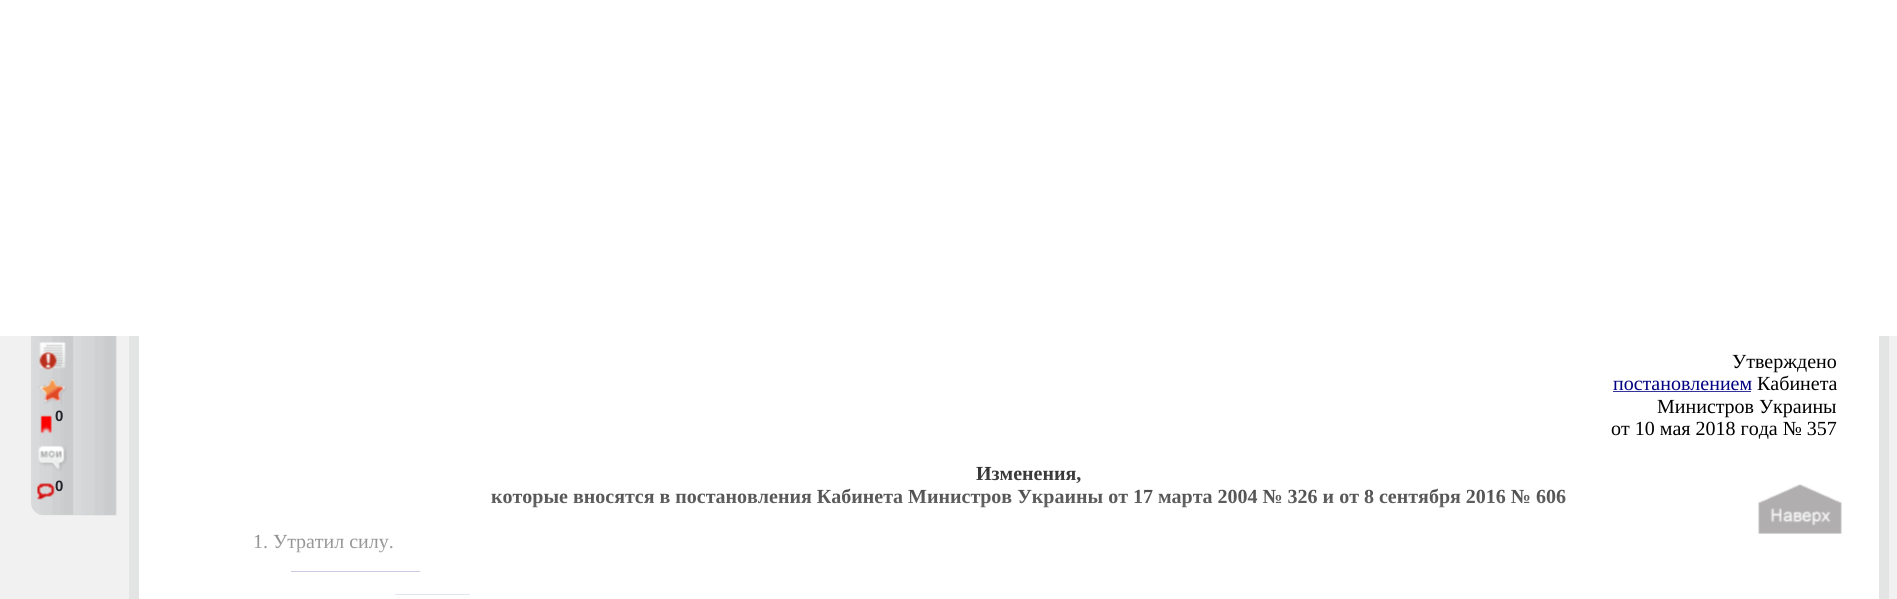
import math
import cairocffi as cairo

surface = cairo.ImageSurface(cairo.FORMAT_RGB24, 1897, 599)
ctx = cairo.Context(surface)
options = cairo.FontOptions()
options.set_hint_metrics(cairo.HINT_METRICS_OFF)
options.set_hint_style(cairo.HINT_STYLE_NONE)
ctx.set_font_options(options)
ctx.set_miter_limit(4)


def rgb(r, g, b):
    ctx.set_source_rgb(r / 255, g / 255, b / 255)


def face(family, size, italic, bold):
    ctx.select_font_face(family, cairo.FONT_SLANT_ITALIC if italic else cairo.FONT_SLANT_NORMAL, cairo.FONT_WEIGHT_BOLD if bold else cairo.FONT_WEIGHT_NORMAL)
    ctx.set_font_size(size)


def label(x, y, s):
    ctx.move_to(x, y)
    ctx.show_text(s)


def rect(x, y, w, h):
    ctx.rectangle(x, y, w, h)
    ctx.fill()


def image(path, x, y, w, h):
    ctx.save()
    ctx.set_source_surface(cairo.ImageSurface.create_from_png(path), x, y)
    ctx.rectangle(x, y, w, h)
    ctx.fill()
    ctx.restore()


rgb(241, 241, 241)
ctx.paint()
rgb(209, 209, 207)
ctx.new_path()
ctx.move_to(31, 83)
ctx.line_to(74, 83)
ctx.line_to(74, 515)
ctx.line_to(44, 515)
ctx.curve_to(37, 515, 31, 509, 31, 502)
ctx.close_path()
ctx.fill()
rgb(255, 255, 255)
rect(139, 336, 1740, 263)
ctx.rectangle(134, -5, 1750, 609)
rgb(227, 229, 228)
ctx.set_line_width(10)
ctx.stroke()
rgb(255, 255, 255)
rect(0, 0, 1897, 336)
image('image0.png', 31, 336, 42, 180)
image('image1.png', 39, 342, 27, 28)
image('image2.png', 38, 377, 29, 27)
image('image3.png', 40, 415, 12, 19)
face('Liberation Sans', 15, 0, 1)
rgb(33, 37, 41)
label(55, 421, '0')
image('image4.png', 38, 445, 29, 26)
image('image5.png', 37, 483, 18, 17)
label(55, 491, '0')
rgb(209, 209, 207)
rect(74, 336, 42, 179)
image('image6.png', 73, 336, 44, 180)
face('Liberation Serif', 20, 0, 0)
rgb(0, 0, 0)
label(1732, 368, 'Утверждено')
rgb(0, 0, 128)
label(1613, 390, 'постановлением')
rgb(51, 51, 153)
rect(1613, 391, 138, 1)
rgb(0, 0, 0)
label(1757, 390, 'Кабинета')
label(1657, 413, 'Министров Украины')
label(1611, 435, 'от 10 мая 2018 года № 357')
face('Liberation Serif', 20, 0, 1)
label(976, 480, 'Изменения,')
label(491, 503, 'которые вносятся в постановления Кабинета Министров Украины от 17 марта 2004 № 326 и от 8 сентября 2016 № 606')
face('Liberation Serif', 20, 0, 0)
label(253, 548, '1. Утратил силу.')
rgb(51, 51, 153)
rect(291, 571, 129, 1)
rect(395, 594, 75, 1)
gradient = cairo.LinearGradient(998, 432, 998, 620)
gradient.add_color_stop_rgba(0, 1, 1, 1, 0)
gradient.add_color_stop_rgba(1, 1, 1, 1, 1)
ctx.set_source(gradient)
rect(254, 436, 1515, 159)
image('image7.png', 1758, 484, 84, 50)
surface.write_to_png('render.png')
